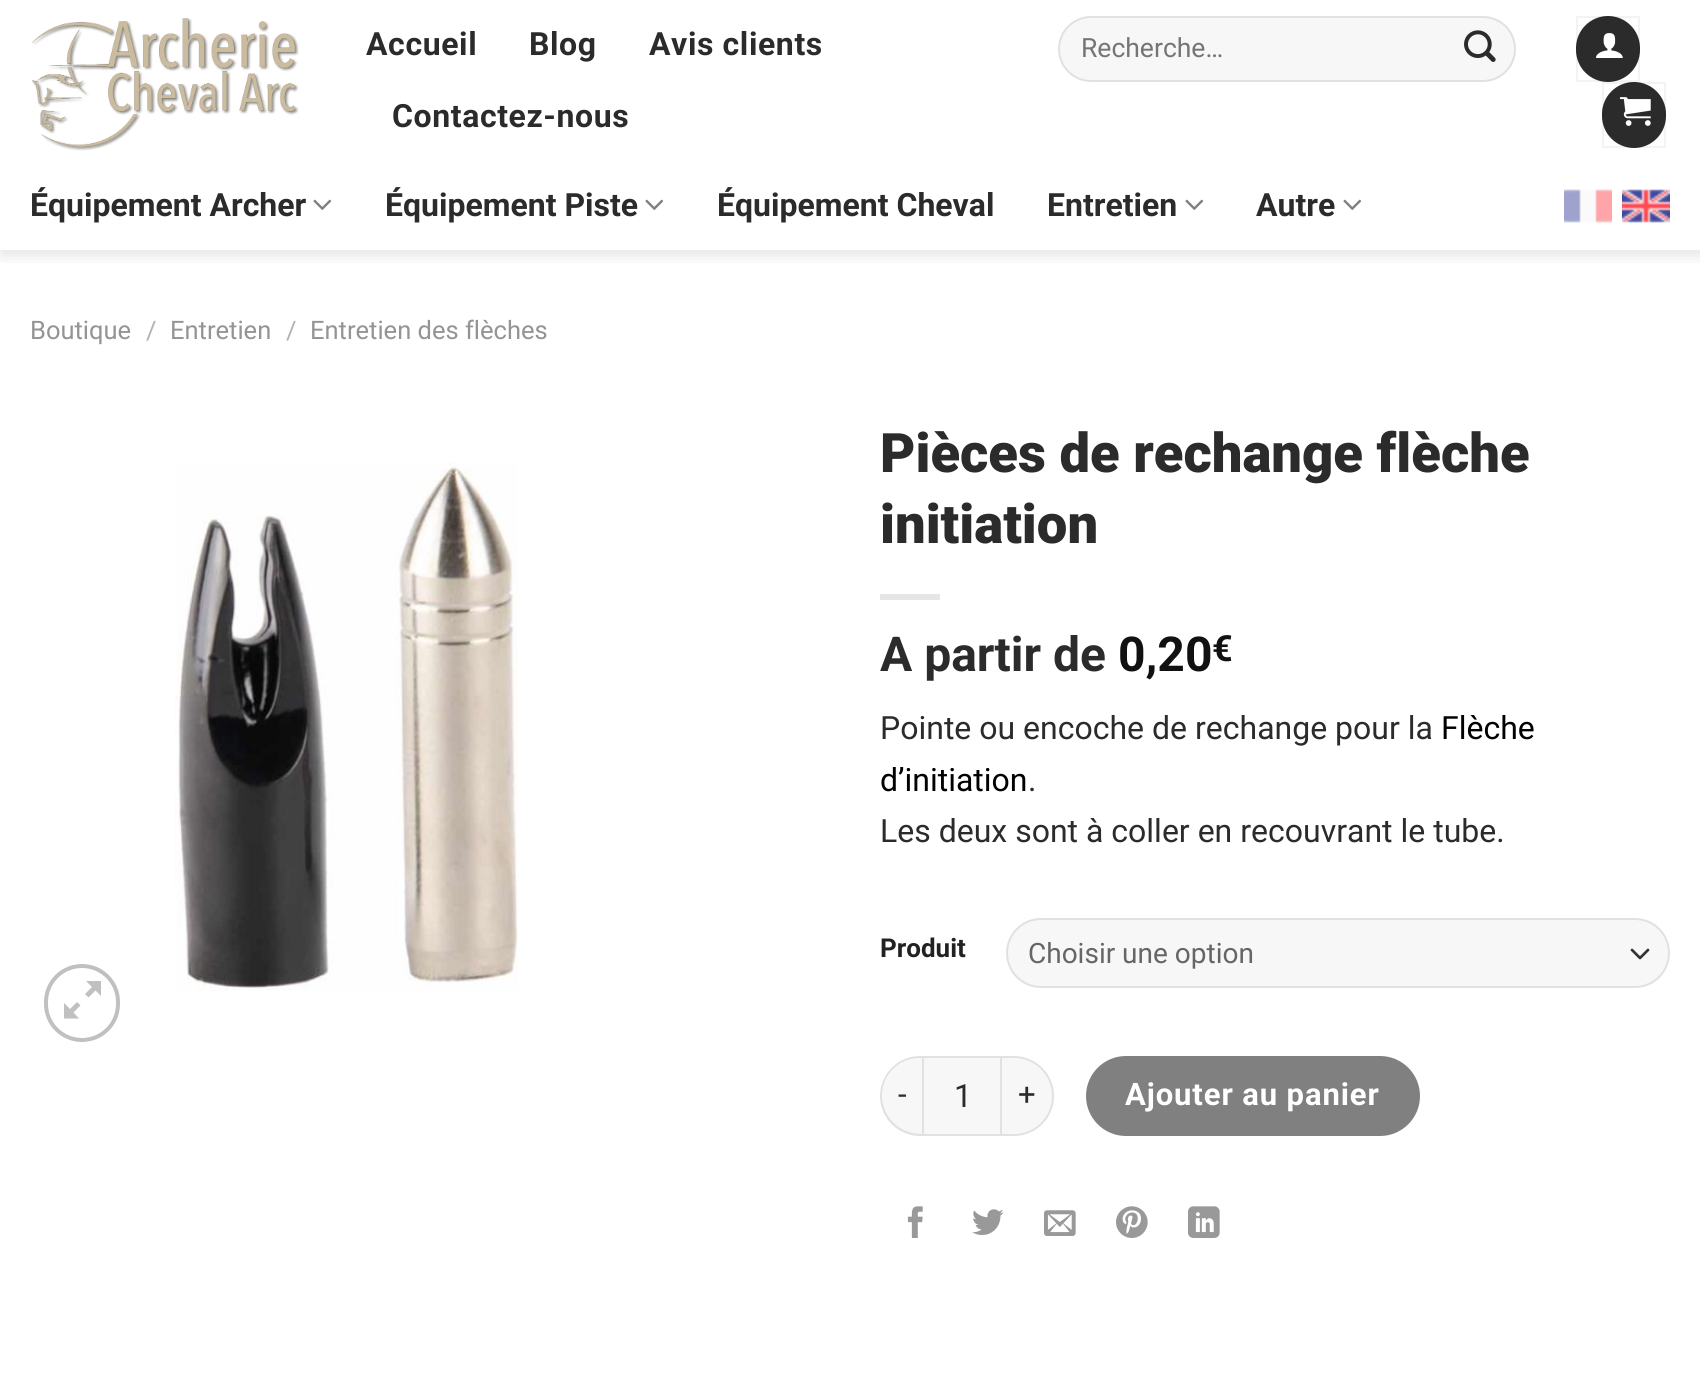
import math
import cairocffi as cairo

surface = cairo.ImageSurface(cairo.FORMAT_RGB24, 1700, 1392)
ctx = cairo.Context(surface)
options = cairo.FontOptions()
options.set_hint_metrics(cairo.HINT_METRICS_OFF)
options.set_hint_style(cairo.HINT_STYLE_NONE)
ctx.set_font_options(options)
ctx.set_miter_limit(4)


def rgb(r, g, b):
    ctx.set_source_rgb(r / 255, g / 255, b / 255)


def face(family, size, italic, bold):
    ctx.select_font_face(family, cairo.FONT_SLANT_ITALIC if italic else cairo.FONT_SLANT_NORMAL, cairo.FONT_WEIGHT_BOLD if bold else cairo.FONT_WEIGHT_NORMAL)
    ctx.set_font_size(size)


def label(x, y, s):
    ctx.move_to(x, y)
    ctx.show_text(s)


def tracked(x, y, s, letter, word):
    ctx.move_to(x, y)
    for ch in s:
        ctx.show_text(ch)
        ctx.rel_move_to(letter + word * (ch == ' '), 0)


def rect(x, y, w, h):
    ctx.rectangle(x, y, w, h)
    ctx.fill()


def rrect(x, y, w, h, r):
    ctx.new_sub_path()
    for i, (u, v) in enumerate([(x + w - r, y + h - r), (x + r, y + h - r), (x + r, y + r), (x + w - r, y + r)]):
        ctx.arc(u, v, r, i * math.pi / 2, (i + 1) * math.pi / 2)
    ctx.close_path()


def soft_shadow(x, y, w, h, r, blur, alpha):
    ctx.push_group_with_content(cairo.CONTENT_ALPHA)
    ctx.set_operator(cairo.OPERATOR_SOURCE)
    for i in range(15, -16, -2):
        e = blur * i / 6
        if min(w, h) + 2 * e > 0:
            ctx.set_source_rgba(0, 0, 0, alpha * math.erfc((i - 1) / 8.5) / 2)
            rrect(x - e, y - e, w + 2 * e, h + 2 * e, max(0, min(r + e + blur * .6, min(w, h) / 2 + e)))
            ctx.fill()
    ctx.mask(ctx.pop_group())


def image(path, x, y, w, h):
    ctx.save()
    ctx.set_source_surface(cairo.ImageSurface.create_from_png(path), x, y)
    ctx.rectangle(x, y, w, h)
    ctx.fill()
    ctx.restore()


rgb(255, 255, 255)
ctx.paint()
ctx.save()
ctx.rectangle(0, 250, 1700, 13)
ctx.clip()
rgb(0, 0, 0)
soft_shadow(2, 2, 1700, 250, 0, 10, 0.15)
ctx.restore()
image('image0.png', 32, 18, 267, 133)
face('Roboto', 32, 0, 1)
rgb(43, 43, 43)
tracked(366, 55, 'Accueil', 0.6, 0)
tracked(529, 55, 'Blog', 0.6, 0)
tracked(649, 55, 'Avis clients', 0.6, 0)
tracked(392, 127, 'Contactez-nous', 0.6, 0)
rgb(247, 247, 247)
rrect(1058, 16, 458, 66, 33)
ctx.fill()
rrect(1059, 17, 456, 64, 32)
ctx.set_source_rgba(0, 0, 0, 0.09)
ctx.stroke()
face('Roboto', 26.5, 0, 0)
rgb(117, 117, 117)
label(1081, 57, 'Recherche…')
image('image1.png', 1464, 30, 32, 32)
rgb(43, 43, 43)
rrect(1576, 16, 64, 66, 32)
ctx.fill()
ctx.rectangle(1577, 17, 62, 64)
ctx.set_source_rgba(0, 0, 0, 0.05)
ctx.stroke()
image('image2.png', 1596, 33, 27, 25)
rgb(43, 43, 43)
rrect(1602, 82, 64, 66, 32)
ctx.fill()
ctx.rectangle(1603, 83, 62, 64)
ctx.set_source_rgba(0, 0, 0, 0.05)
ctx.stroke()
image('image3.png', 1620, 97, 31, 29)
face('Roboto', 32, 0, 1)
rgb(43, 43, 43)
label(30, 216, 'Équipement Archer')
image('image4.png', 313, 199, 19, 11)
label(385, 216, 'Équipement Piste')
image('image4.png', 645, 199, 19, 11)
label(717, 216, 'Équipement Cheval')
label(1047, 216, 'Entretien')
image('image4.png', 1185, 199, 19, 11)
label(1256, 216, 'Autre')
image('image4.png', 1343, 199, 19, 11)
image('image5.png', 1564, 189, 48, 34)
image('image6.png', 1622, 189, 48, 34)
face('Roboto', 25.5, 0, 0)
rgb(148, 148, 148)
label(30, 339, 'Boutique')
rgb(178, 178, 178)
label(146, 339, '/')
rgb(148, 148, 148)
label(170, 339, 'Entretien')
rgb(178, 178, 178)
label(286, 339, '/')
rgb(148, 148, 148)
label(310, 339, 'Entretien des flèches')
image('image7.png', 175, 462, 343, 529)
rrect(46, 966, 72, 74, 36)
rgb(192, 192, 192)
ctx.set_line_width(4)
ctx.stroke()
ctx.new_path()
ctx.move_to(101, 981)
ctx.line_to(101, 996)
ctx.line_to(95.5, 990.5)
ctx.line_to(88.5, 997.5)
ctx.line_to(85, 994)
ctx.line_to(92, 987)
ctx.line_to(86, 981)
ctx.close_path()
ctx.move_to(80.5, 1005.5)
ctx.line_to(73.5, 1012.5)
ctx.line_to(79, 1018.5)
ctx.line_to(64, 1018.5)
ctx.line_to(64, 1003)
ctx.line_to(70, 1009)
ctx.line_to(77, 1002)
ctx.close_path()
ctx.fill()
face('Roboto Black', 54.4, 0, 0)
rgb(43, 43, 43)
label(880, 472, 'Pièces de rechange flèche')
label(880, 543, 'initiation')
rgb(230, 230, 230)
rect(880, 594, 60, 6)
face('Roboto', 48, 0, 1)
rgb(43, 43, 43)
label(880, 671, 'A partir de')
rgb(17, 17, 17)
label(1118, 671, '0,20')
face('Roboto', 36, 0, 1)
label(1212, 661, '€')
face('Roboto', 32, 0, 0)
rgb(43, 43, 43)
label(880, 739, 'Pointe ou encoche de rechange pour la')
rgb(0, 0, 0)
label(1441, 739, 'Flèche')
label(880, 791, 'd’initiation')
rgb(43, 43, 43)
label(1028, 791, '.')
label(880, 842, 'Les deux sont à coller en recouvrant le tube.')
face('Roboto', 26, 0, 1)
rgb(34, 34, 34)
label(880, 957, 'Produit')
rgb(247, 247, 247)
rrect(1006, 918, 664, 70, 35)
ctx.fill()
ctx.new_path()
ctx.move_to(1632, 950)
ctx.line_to(1640, 958)
ctx.line_to(1648, 950)
rgb(51, 51, 51)
ctx.set_line_width(2.7)
ctx.set_line_cap(cairo.LINE_CAP_ROUND)
ctx.set_line_join(cairo.LINE_JOIN_ROUND)
ctx.stroke()
rrect(1007, 919, 662, 68, 34)
ctx.set_source_rgba(0, 0, 0, 0.09)
ctx.set_line_width(2)
ctx.set_line_cap(cairo.LINE_CAP_BUTT)
ctx.set_line_join(cairo.LINE_JOIN_MITER)
ctx.stroke()
face('Roboto', 28, 0, 0)
rgb(102, 102, 102)
label(1028, 963, 'Choisir une option')
rgb(247, 247, 247)
ctx.new_path()
ctx.move_to(920, 1056)
ctx.line_to(922, 1056)
ctx.line_to(922, 1136)
ctx.line_to(920, 1136)
ctx.curve_to(898, 1136, 880, 1118, 880, 1096)
ctx.curve_to(880, 1074, 898, 1056, 920, 1056)
ctx.close_path()
ctx.fill()
ctx.set_source_rgba(0, 0, 0, 0.09)
ctx.set_fill_rule(cairo.FILL_RULE_EVEN_ODD)
ctx.new_path()
ctx.move_to(920, 1056)
ctx.line_to(922, 1056)
ctx.line_to(922, 1136)
ctx.line_to(920, 1136)
ctx.curve_to(898, 1136, 880, 1118, 880, 1096)
ctx.curve_to(880, 1074, 898, 1056, 920, 1056)
ctx.close_path()
ctx.move_to(920, 1058)
ctx.line_to(922, 1058)
ctx.line_to(922, 1134)
ctx.curve_to(883, 1134, 867, 1086, 899, 1064)
ctx.curve_to(905, 1060, 912, 1058, 920, 1058)
ctx.close_path()
ctx.fill()
face('Roboto', 31, 0, 0)
rgb(43, 43, 43)
tracked(898, 1105, '-', 0.9, 0)
rgb(247, 247, 247)
ctx.rectangle(923, 1057, 78, 78)
ctx.fill_preserve()
rgb(225, 225, 225)
ctx.stroke()
face('Roboto', 32, 0, 0)
rgb(43, 43, 43)
label(954, 1107, '1')
rgb(247, 247, 247)
ctx.new_path()
ctx.move_to(1002, 1056)
ctx.line_to(1014, 1056)
ctx.curve_to(1036, 1056, 1054, 1074, 1054, 1096)
ctx.curve_to(1054, 1118, 1036, 1136, 1014, 1136)
ctx.line_to(1002, 1136)
ctx.close_path()
ctx.fill()
ctx.set_source_rgba(0, 0, 0, 0.09)
ctx.new_path()
ctx.move_to(1002, 1056)
ctx.line_to(1014, 1056)
ctx.curve_to(1036, 1056, 1054, 1074, 1054, 1096)
ctx.curve_to(1054, 1118, 1036, 1136, 1014, 1136)
ctx.line_to(1002, 1136)
ctx.close_path()
ctx.move_to(1002, 1058)
ctx.line_to(1014, 1058)
ctx.curve_to(1035, 1058, 1052, 1075, 1052, 1096)
ctx.curve_to(1052, 1117, 1035, 1134, 1014, 1134)
ctx.line_to(1002, 1134)
ctx.close_path()
ctx.fill()
face('Roboto', 31, 0, 0)
rgb(43, 43, 43)
tracked(1018, 1105, '+', 0.9, 0)
rgb(128, 128, 128)
rrect(1086, 1056, 334, 80, 40)
ctx.fill()
face('Roboto', 31, 0, 1)
rgb(255, 255, 255)
tracked(1125, 1105, 'Ajouter au panier', 0.9, 0)
image('image8.png', 907, 1206, 16, 32)
image('image9.png', 972, 1209, 32, 26)
image('image10.png', 1044, 1210, 32, 26)
image('image11.png', 1116, 1206, 32, 32)
image('image12.png', 1188, 1206, 32, 32)
surface.write_to_png('render.png')
